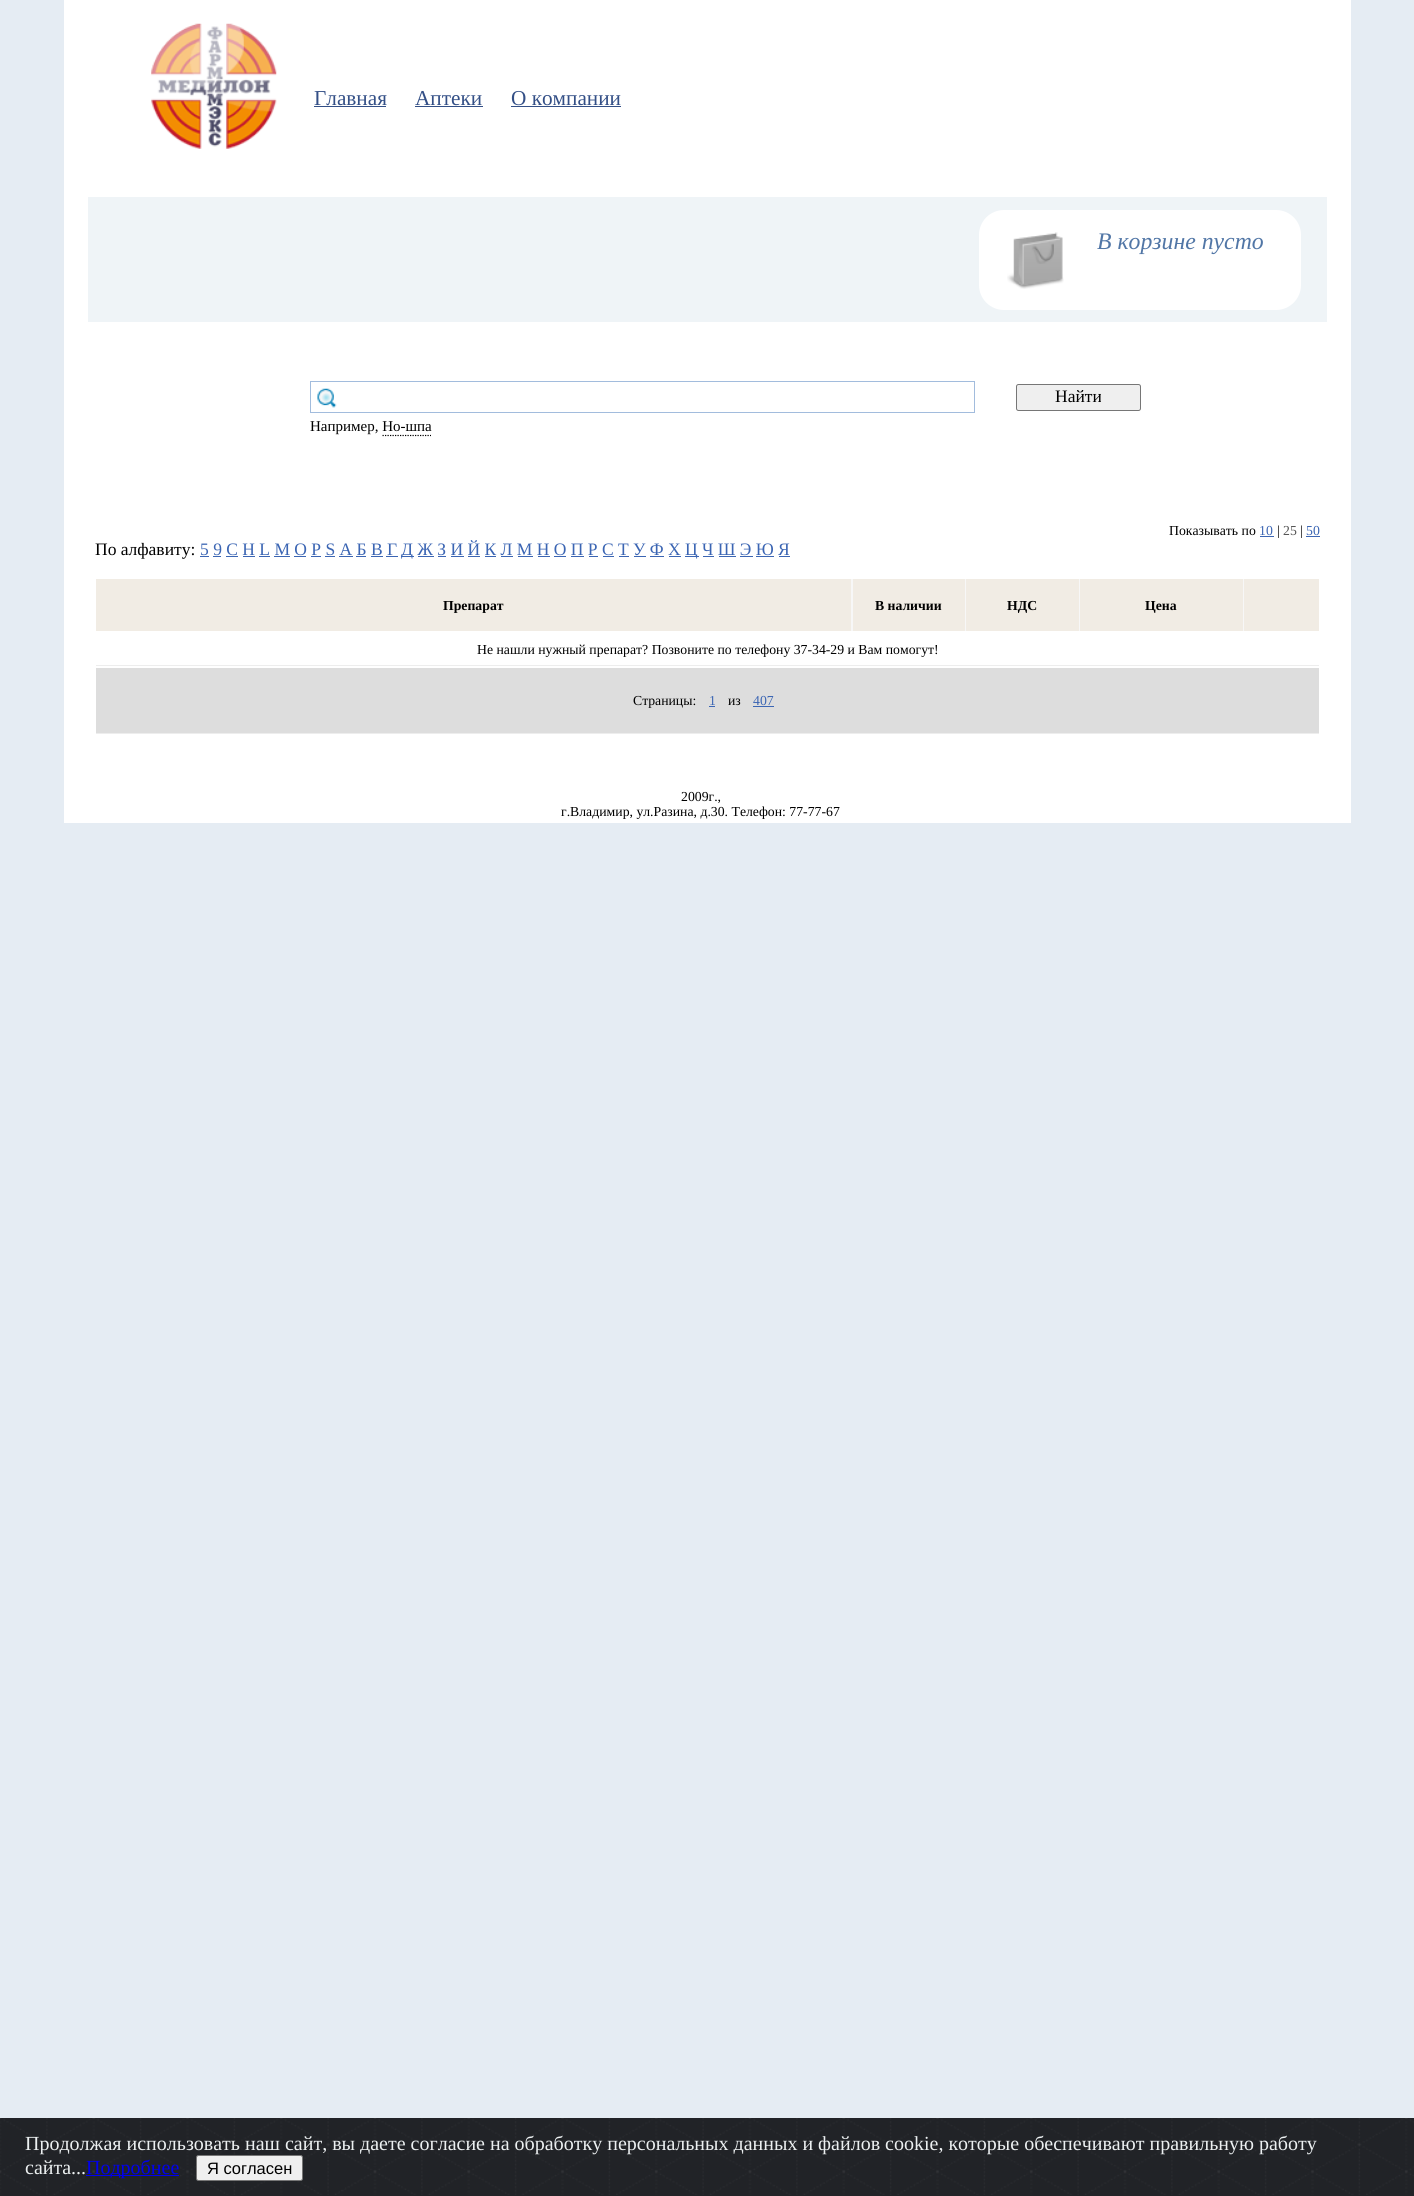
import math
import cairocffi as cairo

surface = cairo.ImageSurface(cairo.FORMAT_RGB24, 1414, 2196)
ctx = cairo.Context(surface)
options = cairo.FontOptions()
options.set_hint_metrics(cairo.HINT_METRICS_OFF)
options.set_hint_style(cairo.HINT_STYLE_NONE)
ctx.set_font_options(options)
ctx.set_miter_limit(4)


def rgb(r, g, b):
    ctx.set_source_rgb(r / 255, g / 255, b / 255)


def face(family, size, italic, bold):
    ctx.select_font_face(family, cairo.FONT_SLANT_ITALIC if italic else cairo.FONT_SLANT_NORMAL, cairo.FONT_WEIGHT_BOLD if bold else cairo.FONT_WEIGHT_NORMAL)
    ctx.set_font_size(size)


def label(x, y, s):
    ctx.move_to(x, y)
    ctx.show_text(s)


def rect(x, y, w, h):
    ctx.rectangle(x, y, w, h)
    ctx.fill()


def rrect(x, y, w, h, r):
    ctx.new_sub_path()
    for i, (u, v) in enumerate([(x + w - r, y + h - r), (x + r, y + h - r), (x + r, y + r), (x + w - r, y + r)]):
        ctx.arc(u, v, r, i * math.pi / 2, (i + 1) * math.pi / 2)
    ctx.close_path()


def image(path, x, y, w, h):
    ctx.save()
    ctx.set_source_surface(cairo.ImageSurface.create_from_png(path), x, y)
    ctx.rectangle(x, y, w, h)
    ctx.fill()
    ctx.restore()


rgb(229, 236, 243)
ctx.paint()
rgb(255, 255, 255)
rect(64, 0, 1287, 823)
image('image0.png', 151, 23, 126, 126)
face('Liberation Serif', 21.25, 0, 0)
rgb(51, 79, 134)
label(314, 105, 'Главная')
rect(314, 106, 72, 1)
label(415, 105, 'Аптеки')
rect(415, 106, 68, 1)
label(511, 105, 'О компании')
rect(511, 106, 110, 1)
rgb(239, 244, 247)
rect(88, 197, 1239, 125)
rgb(255, 255, 255)
rrect(979, 210, 322, 100, 25)
ctx.fill()
image('image1.png', 1007, 232, 57, 57)
face('Liberation Serif', 23.75, 1, 0)
rgb(81, 118, 166)
label(1097, 249, 'В корзине пусто')
image('image2.png', 317, 388, 20, 20)
ctx.rectangle(310.5, 381.5, 664, 31)
rgb(162, 188, 221)
ctx.set_line_width(1)
ctx.stroke()
rgb(239, 239, 239)
rrect(1016.5, 384.5, 124, 26, 2)
ctx.fill_preserve()
rgb(118, 118, 118)
ctx.stroke()
face('Liberation Serif', 17.5, 0, 0)
rgb(0, 0, 0)
label(1055, 402, 'Найти')
face('Liberation Serif', 15, 0, 0)
label(310, 431, 'Например, Но-шпа')
ctx.new_path()
ctx.move_to(382.5, 435.5)
ctx.line_to(431, 435.5)
ctx.set_line_width(1.2)
ctx.set_dash([1.25, 1.25])
ctx.stroke()
face('Liberation Serif', 13.75, 0, 0)
label(1169, 535, 'Показывать по')
rgb(59, 101, 179)
label(1259, 535, '10')
rect(1260, 536, 14, 1)
rgb(0, 0, 0)
label(1277, 535, '|')
rgb(85, 85, 85)
label(1283, 535, '25')
rgb(0, 0, 0)
label(1300, 535, '|')
rgb(59, 101, 179)
label(1306, 535, '50')
rect(1306, 536, 14, 1)
face('Liberation Serif', 17.5, 0, 0)
rgb(0, 0, 0)
label(95, 555, 'По алфавиту:')
rgb(59, 101, 179)
label(200, 555, '5 9 C H L M O P S А Б В Г')
rect(200, 556, 9, 1)
rect(401, 556, 13, 1)
label(401, 555, 'Д Ж З И Й К Л М Н О П Р С Т У Ф Х')
rect(685, 556, 14, 1)
label(685, 555, 'Ц Ч Ш Э Ю Я')
rect(213, 556, 8, 1)
rect(226, 556, 12, 1)
rect(243, 556, 12, 1)
rect(259, 556, 11, 1)
rect(274, 556, 16, 1)
rect(294, 556, 12, 1)
rect(311, 556, 10, 1)
rect(325, 556, 10, 1)
rect(339, 556, 14, 1)
rect(356, 556, 10, 1)
rect(371, 556, 12, 1)
rect(386, 556, 12, 1)
rect(418, 556, 16, 1)
rect(438, 556, 8, 1)
rect(451, 556, 13, 1)
rect(468, 556, 12, 1)
rect(485, 556, 11, 1)
rect(501, 556, 12, 1)
rect(518, 556, 15, 1)
rect(538, 556, 12, 1)
rect(554, 556, 12, 1)
rect(571, 556, 13, 1)
rect(589, 556, 9, 1)
rect(603, 556, 11, 1)
rect(619, 556, 10, 1)
rect(634, 556, 12, 1)
rect(650, 556, 14, 1)
rect(669, 556, 12, 1)
rect(703, 556, 11, 1)
rect(719, 556, 17, 1)
rect(740, 556, 13, 1)
rect(756, 556, 18, 1)
rect(779, 556, 11, 1)
rgb(247, 247, 247)
rect(851, 579, 393, 52)
rgb(241, 236, 228)
rect(96, 579, 755, 52)
face('Liberation Serif', 13.75, 0, 1)
rgb(0, 0, 0)
label(443, 610, 'Препарат')
rgb(241, 236, 228)
rect(853, 579, 112, 52)
rgb(0, 0, 0)
label(875, 610, 'В наличии')
rgb(241, 236, 228)
rect(966, 579, 113, 52)
rgb(0, 0, 0)
label(1007, 610, 'НДС')
rgb(241, 236, 228)
rect(1080, 579, 163, 52)
rgb(0, 0, 0)
label(1145, 610, 'Цена')
rgb(241, 236, 228)
rect(1244, 579, 75, 52)
rgb(237, 237, 237)
rect(96, 665, 1223, 1)
face('Liberation Serif', 13.75, 0, 0)
rgb(0, 0, 0)
label(477, 654, 'Не нашли нужный препарат? Позвоните по телефону 37-34-29 и Вам помогут!')
rgb(221, 221, 221)
rect(96, 668, 1223, 65)
rgb(237, 237, 237)
rect(96, 733, 1223, 1)
rgb(0, 0, 0)
label(633, 705, 'Страницы:')
rgb(59, 101, 179)
label(709, 705, '1')
rect(709, 706, 6, 1)
rgb(0, 0, 0)
label(728, 705, 'из')
rgb(59, 101, 179)
label(753, 705, '407')
rect(753, 706, 21, 1)
rgb(0, 0, 0)
label(681, 801, '2009г.,')
label(561, 816, 'г.Владимир, ул.Разина, д.30. Телефон: 77-77-67')
rgb(33, 35, 39)
rect(0, 2195, 1414, 1)
image('image3.png', 0, 2118, 1414, 77)
face('Liberation Serif', 20, 0, 0)
rgb(236, 240, 241)
label(25, 2150, 'Продолжая использовать наш сайт, вы даете согласие на обработку персональных данных и файлов cookie, которые обеспечивают правильную работу')
label(25, 2174, 'сайта...')
rgb(0, 0, 238)
rect(86, 2175, 93, 1)
label(86, 2174, 'Подробнее')
rgb(239, 239, 239)
rrect(196.5, 2155.5, 106, 25, 2)
ctx.fill_preserve()
rgb(118, 118, 118)
ctx.set_line_width(1)
ctx.set_dash([])
ctx.stroke()
face('Liberation Sans', 16.5, 0, 0)
rgb(0, 0, 0)
label(207, 2174, 'Я согласен')
surface.write_to_png('render.png')
